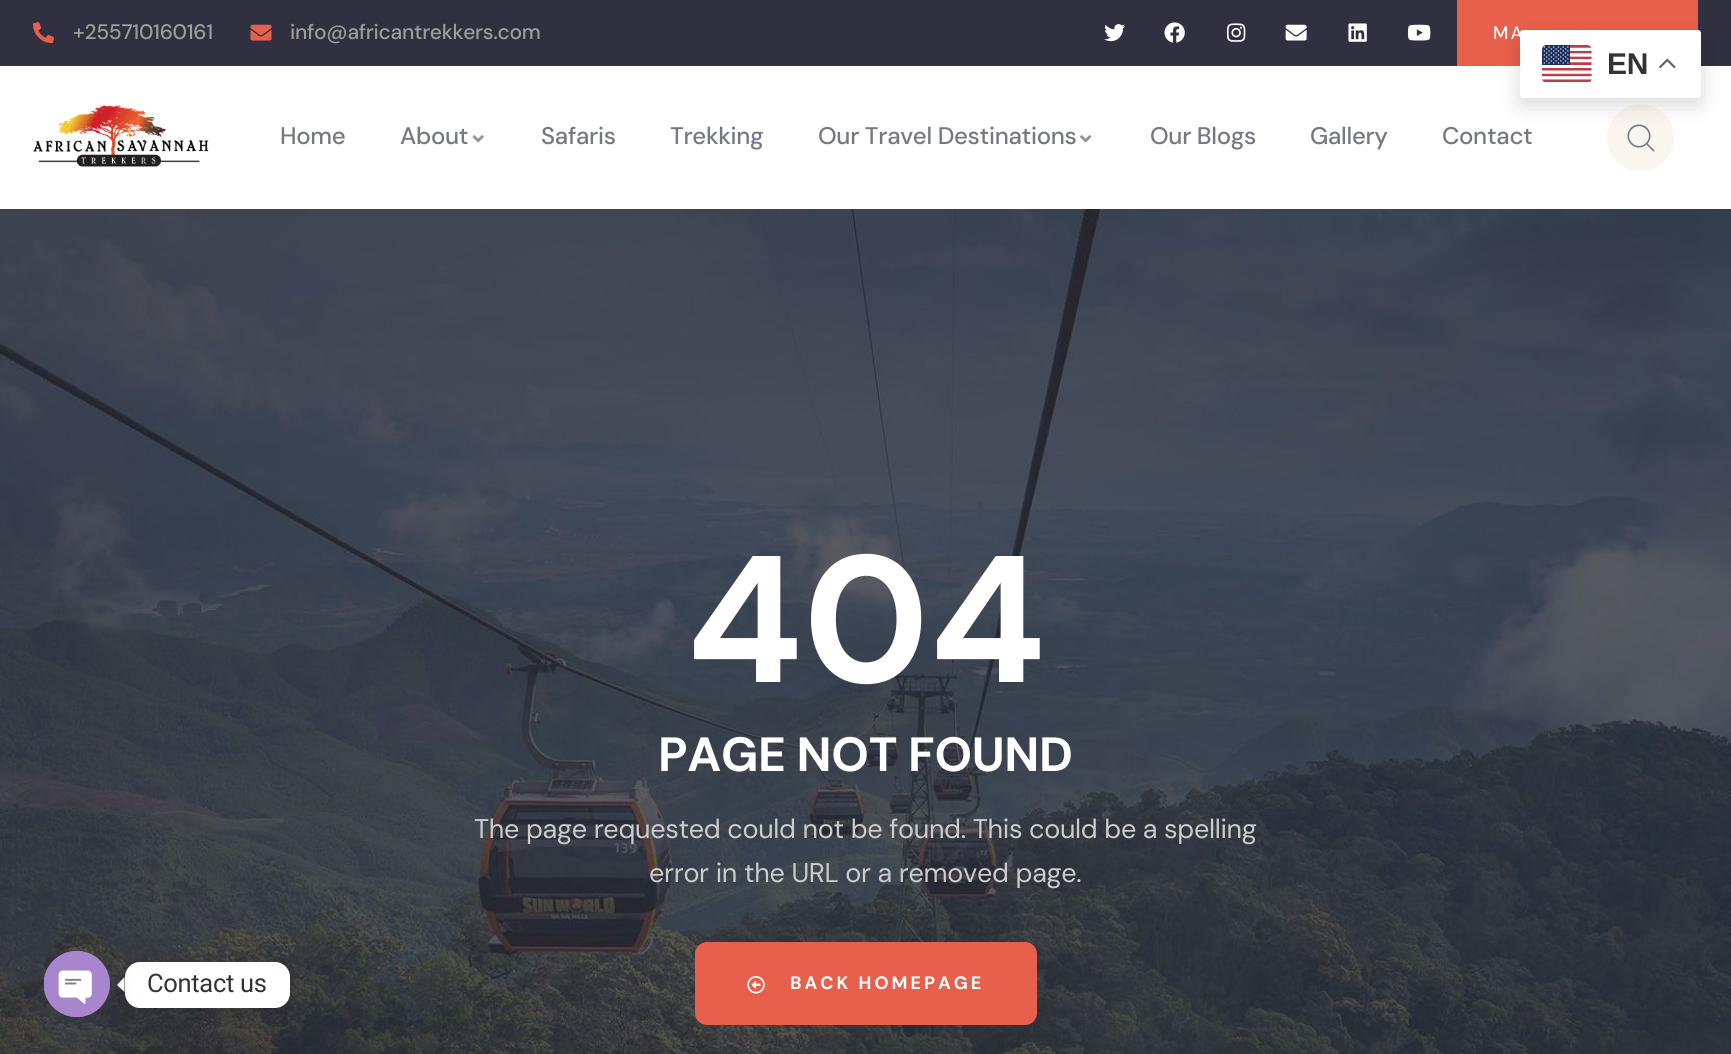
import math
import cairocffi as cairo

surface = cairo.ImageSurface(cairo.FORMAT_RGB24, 1731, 1054)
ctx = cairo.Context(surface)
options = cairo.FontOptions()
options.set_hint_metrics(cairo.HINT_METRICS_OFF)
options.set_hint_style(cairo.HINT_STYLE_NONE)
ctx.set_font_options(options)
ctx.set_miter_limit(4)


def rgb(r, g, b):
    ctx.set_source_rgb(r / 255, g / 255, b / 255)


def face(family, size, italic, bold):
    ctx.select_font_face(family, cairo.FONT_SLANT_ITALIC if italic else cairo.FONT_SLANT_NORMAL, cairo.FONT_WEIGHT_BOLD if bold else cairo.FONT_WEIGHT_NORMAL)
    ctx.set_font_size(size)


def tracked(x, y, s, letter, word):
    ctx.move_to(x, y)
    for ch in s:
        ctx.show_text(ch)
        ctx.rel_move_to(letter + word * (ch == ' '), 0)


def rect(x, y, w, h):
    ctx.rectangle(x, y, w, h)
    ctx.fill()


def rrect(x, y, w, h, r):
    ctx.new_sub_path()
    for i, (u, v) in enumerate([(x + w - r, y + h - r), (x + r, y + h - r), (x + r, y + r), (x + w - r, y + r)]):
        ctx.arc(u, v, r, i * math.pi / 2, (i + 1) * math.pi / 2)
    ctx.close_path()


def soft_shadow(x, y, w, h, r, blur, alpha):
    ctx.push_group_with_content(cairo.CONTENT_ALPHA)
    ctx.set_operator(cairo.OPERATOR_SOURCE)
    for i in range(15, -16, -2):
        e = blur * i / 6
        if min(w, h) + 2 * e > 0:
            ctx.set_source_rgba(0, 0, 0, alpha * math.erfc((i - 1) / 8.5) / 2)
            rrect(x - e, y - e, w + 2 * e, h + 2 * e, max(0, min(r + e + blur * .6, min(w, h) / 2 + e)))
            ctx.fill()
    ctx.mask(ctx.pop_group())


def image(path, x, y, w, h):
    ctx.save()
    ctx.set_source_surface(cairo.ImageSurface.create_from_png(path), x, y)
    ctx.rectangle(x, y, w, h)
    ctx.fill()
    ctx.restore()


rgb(255, 255, 255)
ctx.paint()
rgb(49, 48, 65)
rect(0, 0, 1731, 66)
image('image0.png', 33, 22, 21, 22)
face('DM Sans Medium', 21, 0, 0)
rgb(157, 157, 157)
tracked(73, 39, '+255710160161', -0.3, 0)
image('image1.png', 250, 24, 22, 17)
tracked(290, 39, 'info@africantrekkers.com', -0.3, 0)
image('image2.png', 1104, 24, 21, 18)
image('image3.png', 1164, 22, 21, 21)
image('image4.png', 1226, 23, 20, 19)
image('image5.png', 1285, 24, 22, 17)
image('image6.png', 1348, 23, 19, 19)
image('image7.png', 1407, 24, 24, 17)
rgb(232, 96, 76)
rect(1457, 0, 241, 66)
face('DM Sans Medium', 18, 0, 0)
rgb(255, 255, 255)
tracked(1493, 39, 'MA', 2, 0)
image('image8.png', 33, 105, 176, 62)
face('DM Sans Medium', 24, 0, 0)
rgb(117, 119, 131)
tracked(280, 144, 'Home', -0.3, 0)
tracked(400, 144, 'About', -0.3, 0)
image('image9.png', 472, 135, 12, 8)
tracked(541, 144, 'Safaris', -0.3, 0)
tracked(670, 144, 'Trekking', -0.3, 0)
tracked(818, 144, 'Our Travel Destinations', -0.3, 0)
image('image10.png', 1080, 135, 12, 8)
tracked(1150, 144, 'Our Blogs', -0.3, 0)
tracked(1310, 144, 'Gallery', -0.3, 0)
tracked(1442, 144, 'Contact', -0.3, 0)
rgb(250, 245, 238)
ctx.new_path()
ctx.arc(1640.5, 137.5, 33.5, 0, 2 * math.pi)
ctx.fill()
image('image11.png', 1627, 124, 28, 28)
image('image12.png', 0, 209, 1731, 845)
face('DM Sans', 180, 0, 1)
rgb(255, 255, 255)
tracked(686, 682, '404', -0.3, 0)
face('DM Sans', 48, 0, 1)
tracked(658, 771, 'PAGE NOT FOUND', -0.3, 0)
face('DM Sans', 27, 0, 0)
rgb(204, 204, 204)
tracked(474, 838, 'The page requested could not be found. This could be a spelling', -0.3, 0)
tracked(649, 882, 'error in the URL or a removed page.', -0.3, 0)
rgb(232, 96, 76)
rrect(695, 942, 342, 83, 12)
ctx.fill()
image('image13.png', 747, 976, 18, 18)
face('DM Sans', 18, 0, 1)
rgb(255, 255, 255)
tracked(790, 989, 'BACK HOMEPAGE', 3, 0)
rgb(0, 0, 0)
soft_shadow(1520, 38, 181, 67, 3, 11, 0.15)
rgb(255, 255, 255)
rrect(1520, 30, 181, 68, 3)
ctx.fill()
image('image14.png', 1542, 45, 50, 37)
face('Liberation Sans', 30, 0, 1)
rgb(51, 51, 51)
tracked(1607, 74, 'EN', -0.3, 0)
image('image15.png', 1659, 58, 17, 11)
rgb(0, 0, 0)
soft_shadow(125, 963, 165, 47, 15, 6, 0.15)
rgb(255, 255, 255)
rrect(125, 962, 165, 46, 15)
ctx.fill()
ctx.new_path()
ctx.move_to(124.5, 977)
ctx.line_to(124.5, 992)
ctx.line_to(117, 985)
ctx.close_path()
ctx.fill()
rgb(73, 104, 126)
soft_shadow(44, 975, 66, 66, 33, 18, 0.16)
rgb(168, 134, 205)
ctx.arc(77, 984, 33, 0, 2 * math.pi)
ctx.fill()
image('image16.png', 44, 951, 60, 66)
face('Roboto', 25.5, 0, 0)
rgb(51, 51, 51)
tracked(147, 992, 'Contact us', -0.3, 0)
surface.write_to_png('render.png')
